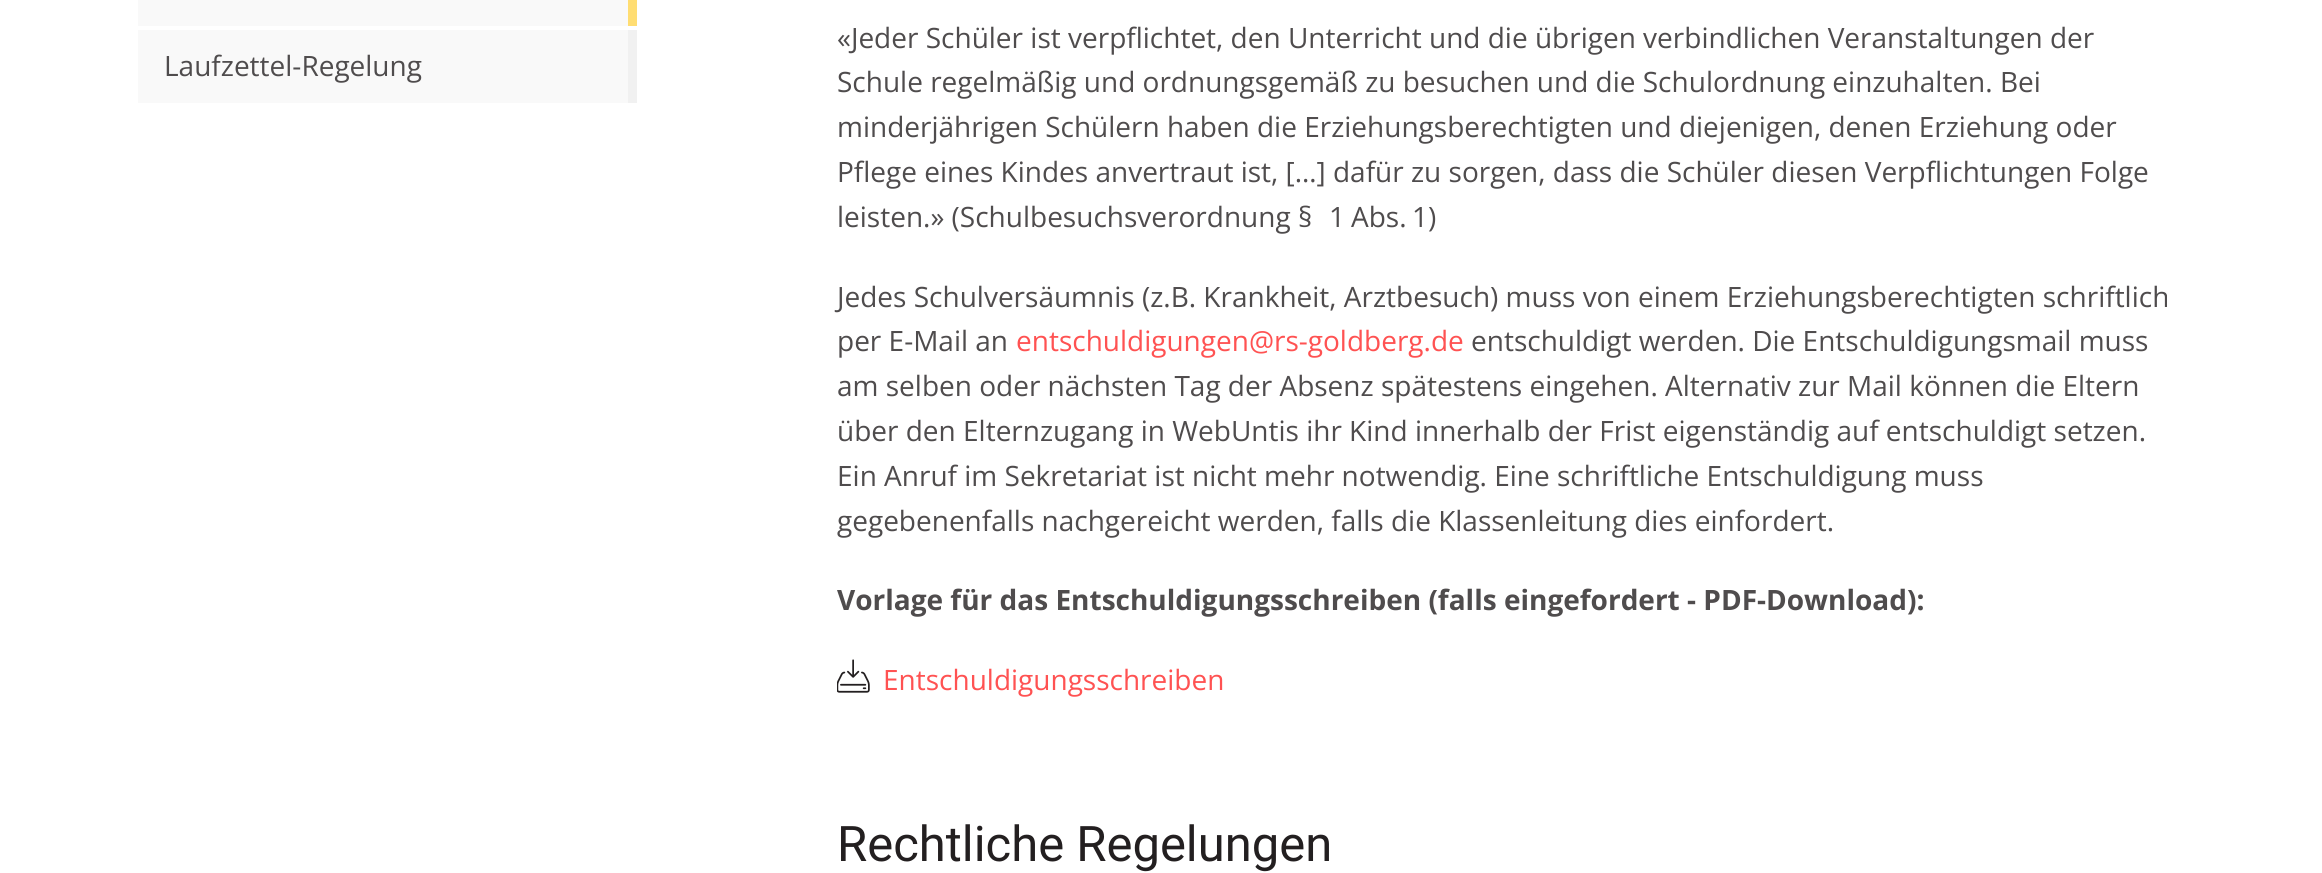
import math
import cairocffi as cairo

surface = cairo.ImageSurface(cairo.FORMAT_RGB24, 2322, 873)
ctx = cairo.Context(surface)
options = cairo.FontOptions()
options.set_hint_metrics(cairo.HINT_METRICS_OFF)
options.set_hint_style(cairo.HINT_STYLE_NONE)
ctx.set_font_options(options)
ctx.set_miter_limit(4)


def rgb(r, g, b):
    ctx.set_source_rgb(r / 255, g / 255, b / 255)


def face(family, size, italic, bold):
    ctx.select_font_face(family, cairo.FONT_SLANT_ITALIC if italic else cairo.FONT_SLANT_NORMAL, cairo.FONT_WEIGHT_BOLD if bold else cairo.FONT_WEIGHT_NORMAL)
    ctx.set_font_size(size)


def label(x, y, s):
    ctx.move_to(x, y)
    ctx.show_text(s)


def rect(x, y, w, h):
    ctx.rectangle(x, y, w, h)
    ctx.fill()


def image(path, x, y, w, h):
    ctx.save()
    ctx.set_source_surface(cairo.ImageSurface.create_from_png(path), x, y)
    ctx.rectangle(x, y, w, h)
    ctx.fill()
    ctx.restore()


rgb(255, 255, 255)
ctx.paint()
rgb(249, 249, 249)
rect(138, 0, 490, 26)
rgb(255, 221, 114)
rect(628, 0, 9, 26)
rgb(249, 249, 249)
rect(138, 30, 490, 73)
rgb(241, 241, 241)
rect(628, 30, 9, 73)
face('Open Sans', 28, 0, 0)
rgb(79, 76, 77)
label(164, 76, 'Laufzettel-Regelung')
label(837, 48, '«Jeder Schüler ist verpflichtet, den Unterricht und die übrigen verbindlichen Veranstaltungen der')
label(837, 92, 'Schule regelmäßig und ordnungsgemäß zu besuchen und die Schulordnung einzuhalten. Bei')
label(837, 137, 'minderjährigen Schülern haben die Erziehungsberechtigten und diejenigen, denen Erziehung oder')
label(837, 182, 'Pflege eines Kindes anvertraut ist, […] dafür zu sorgen, dass die Schüler diesen Verpflichtungen Folge')
label(837, 227, 'leisten.» (Schulbesuchsverordnung § 1')
label(1351, 227, 'Abs.')
label(1412, 227, '1)')
label(837, 307, 'Jedes Schulversäumnis (z.B. Krankheit, Arztbesuch) muss von einem Erziehungsberechtigten schriftlich')
label(837, 351, 'per E-Mail an')
rgb(255, 82, 82)
label(1016, 351, 'entschuldigungen@rs-goldberg.de')
rgb(79, 76, 77)
label(1471, 351, 'entschuldigt werden. Die Entschuldigungsmail muss')
label(837, 396, 'am selben oder nächsten Tag der Absenz spätestens eingehen. Alternativ zur Mail können die Eltern')
label(837, 441, 'über den Elternzugang in WebUntis ihr Kind innerhalb der Frist eigenständig auf entschuldigt setzen.')
label(837, 486, 'Ein Anruf im Sekretariat ist nicht mehr notwendig. Eine schriftliche Entschuldigung muss')
label(837, 531, 'gegebenenfalls nachgereicht werden, falls die Klassenleitung dies einfordert.')
face('Open Sans', 28, 0, 1)
label(837, 610, 'Vorlage für das Entschuldigungsschreiben (falls eingefordert - PDF-Download):')
image('image0.png', 837, 659, 33, 34)
face('Open Sans', 28, 0, 0)
rgb(255, 82, 82)
label(883, 690, 'Entschuldigungsschreiben')
face('Roboto', 49, 0, 0)
rgb(35, 31, 32)
label(837, 861, 'Rechtliche Regelungen')
surface.write_to_png('render.png')
